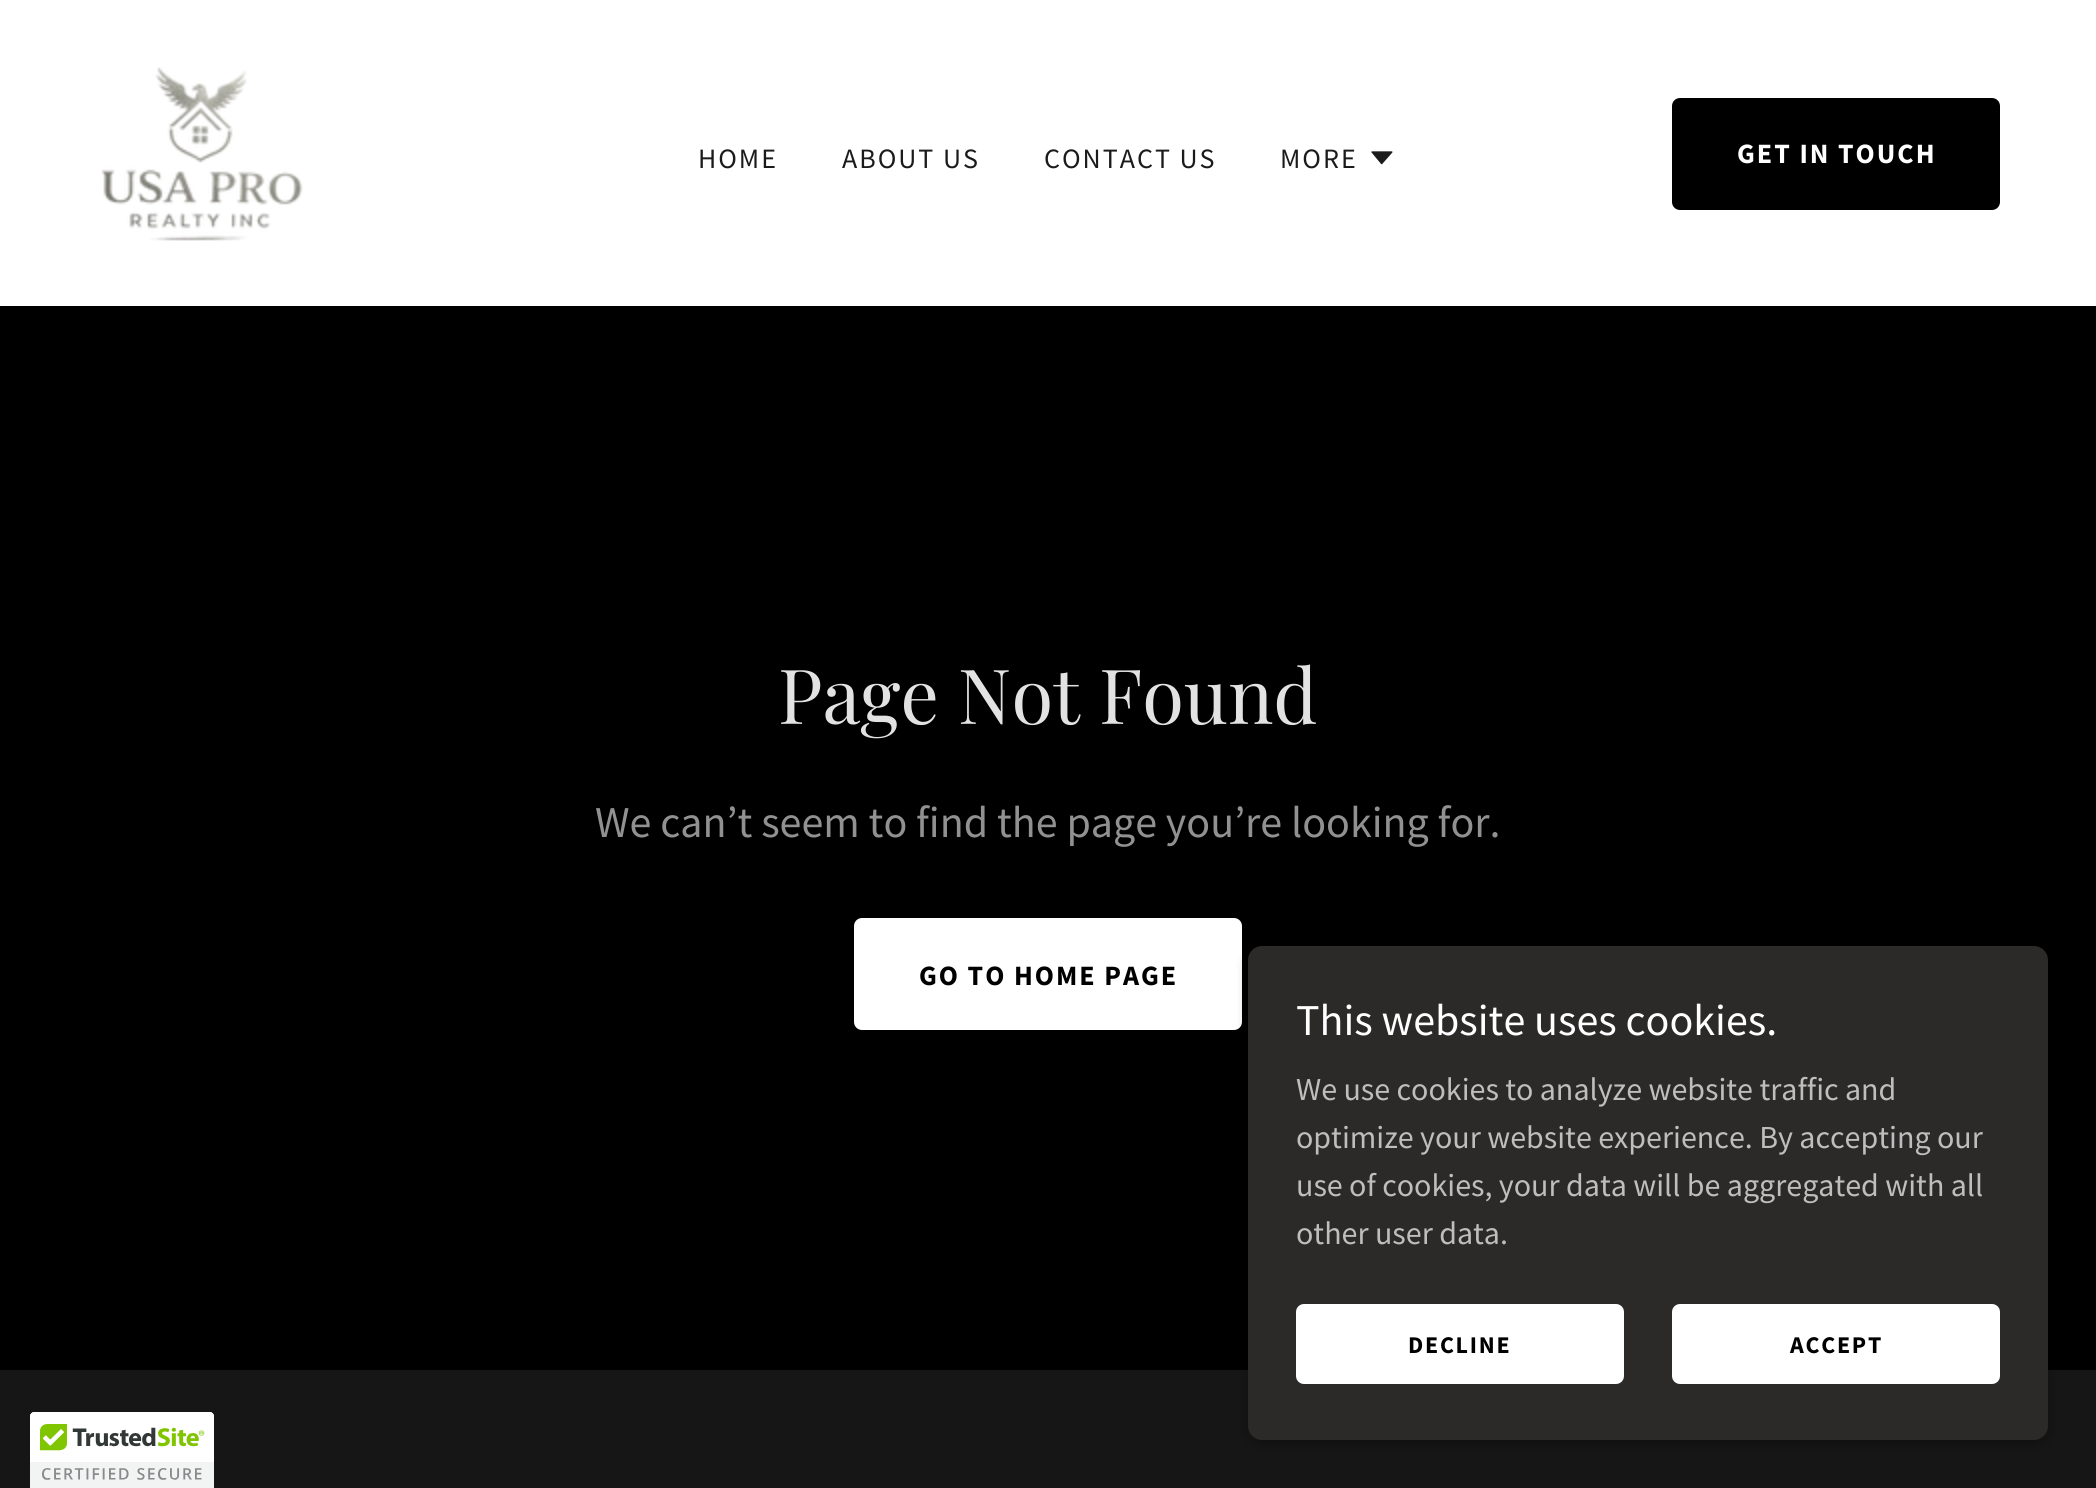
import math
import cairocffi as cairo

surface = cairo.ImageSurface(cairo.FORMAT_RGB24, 2096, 1488)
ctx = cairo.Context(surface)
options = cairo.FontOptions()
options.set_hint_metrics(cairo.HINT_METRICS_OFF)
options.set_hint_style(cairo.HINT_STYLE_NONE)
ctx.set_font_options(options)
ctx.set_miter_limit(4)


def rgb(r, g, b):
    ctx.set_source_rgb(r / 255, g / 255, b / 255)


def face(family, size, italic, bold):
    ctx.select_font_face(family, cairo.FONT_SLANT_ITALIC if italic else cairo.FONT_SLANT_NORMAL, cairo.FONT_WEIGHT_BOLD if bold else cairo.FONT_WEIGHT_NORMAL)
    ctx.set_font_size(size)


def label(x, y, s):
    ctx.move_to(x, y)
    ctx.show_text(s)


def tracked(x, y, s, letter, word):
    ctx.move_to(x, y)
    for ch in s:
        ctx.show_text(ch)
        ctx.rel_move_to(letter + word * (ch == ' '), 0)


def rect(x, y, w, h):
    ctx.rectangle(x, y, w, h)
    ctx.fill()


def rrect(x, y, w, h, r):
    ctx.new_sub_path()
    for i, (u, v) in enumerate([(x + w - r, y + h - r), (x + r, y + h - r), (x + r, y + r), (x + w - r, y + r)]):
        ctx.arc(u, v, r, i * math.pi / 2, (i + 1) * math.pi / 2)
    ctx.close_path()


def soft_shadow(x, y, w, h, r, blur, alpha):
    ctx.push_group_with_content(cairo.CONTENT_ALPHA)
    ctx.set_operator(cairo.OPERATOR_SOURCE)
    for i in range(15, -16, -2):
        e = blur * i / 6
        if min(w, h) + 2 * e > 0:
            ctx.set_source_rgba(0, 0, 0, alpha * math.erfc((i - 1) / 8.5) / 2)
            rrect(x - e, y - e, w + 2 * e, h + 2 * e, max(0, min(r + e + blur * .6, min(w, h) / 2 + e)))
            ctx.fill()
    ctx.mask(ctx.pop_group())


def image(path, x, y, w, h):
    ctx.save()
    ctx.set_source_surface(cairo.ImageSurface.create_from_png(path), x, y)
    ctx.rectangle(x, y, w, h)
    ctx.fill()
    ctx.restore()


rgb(22, 22, 22)
ctx.paint()
rgb(255, 255, 255)
rect(0, 0, 2096, 306)
image('image0.png', 101, 67, 202, 174)
face('Source Sans Pro', 28, 0, 0)
rgb(27, 27, 27)
tracked(698, 168, 'HOME', 2, 0)
tracked(842, 168, 'ABOUT US', 2, 0)
tracked(1044, 168, 'CONTACT US', 2, 0)
tracked(1280, 168, 'MORE', 2, 0)
image('image1.png', 1371, 151, 22, 14)
rgb(0, 0, 0)
rrect(1672, 98, 328, 112, 8)
ctx.fill()
face('Source Sans Pro', 28, 0, 1)
rgb(255, 255, 255)
tracked(1737, 163, 'GET IN TOUCH', 2, 0)
rgb(0, 0, 0)
rect(0, 306, 2096, 1064)
face('Playfair Display', 76, 0, 0)
rgb(226, 226, 226)
label(778, 724, 'Page Not Found')
face('Source Sans Pro', 44, 0, 0)
rgb(145, 145, 145)
label(595, 837, 'We can’t seem to find the page you’re looking for.')
rgb(255, 255, 255)
rrect(854, 918, 388, 112, 8)
ctx.fill()
face('Source Sans Pro', 28, 0, 1)
rgb(0, 0, 0)
tracked(919, 985, 'GO TO HOME PAGE', 2, 0)
rgb(0, 0, 0)
soft_shadow(1248, 950, 800, 494, 14, 6, 0.3)
rgb(44, 41, 41)
rrect(1248, 946, 800, 494, 14)
ctx.fill()
face('Source Sans Pro', 44, 0, 0)
rgb(255, 255, 255)
label(1296, 1035, 'This website uses cookies.')
face('Source Sans Pro', 32, 0, 0)
rgb(190, 190, 190)
label(1296, 1100, 'We use cookies to analyze website traffic and')
label(1296, 1148, 'optimize your website experience. By accepting our')
label(1296, 1196, 'use of cookies, your data will be aggregated with all')
label(1296, 1244, 'other user data.')
rgb(255, 255, 255)
rrect(1296, 1304, 328, 80, 8)
ctx.fill()
face('Source Sans Pro', 24, 0, 1)
rgb(0, 0, 0)
tracked(1408, 1353, 'DECLINE', 1.75, 0)
rgb(255, 255, 255)
rrect(1672, 1304, 328, 80, 8)
ctx.fill()
rgb(0, 0, 0)
tracked(1790, 1353, 'ACCEPT', 1.75, 0)
rgb(255, 255, 255)
ctx.new_path()
ctx.move_to(34, 1412)
ctx.line_to(210, 1412)
ctx.curve_to(212, 1412, 214, 1414, 214, 1416)
ctx.line_to(214, 1488)
ctx.line_to(30, 1488)
ctx.line_to(30, 1416)
ctx.curve_to(30, 1414, 32, 1412, 34, 1412)
ctx.close_path()
ctx.fill()
image('image2.png', 30, 1412, 184, 76)
surface.write_to_png('render.png')
